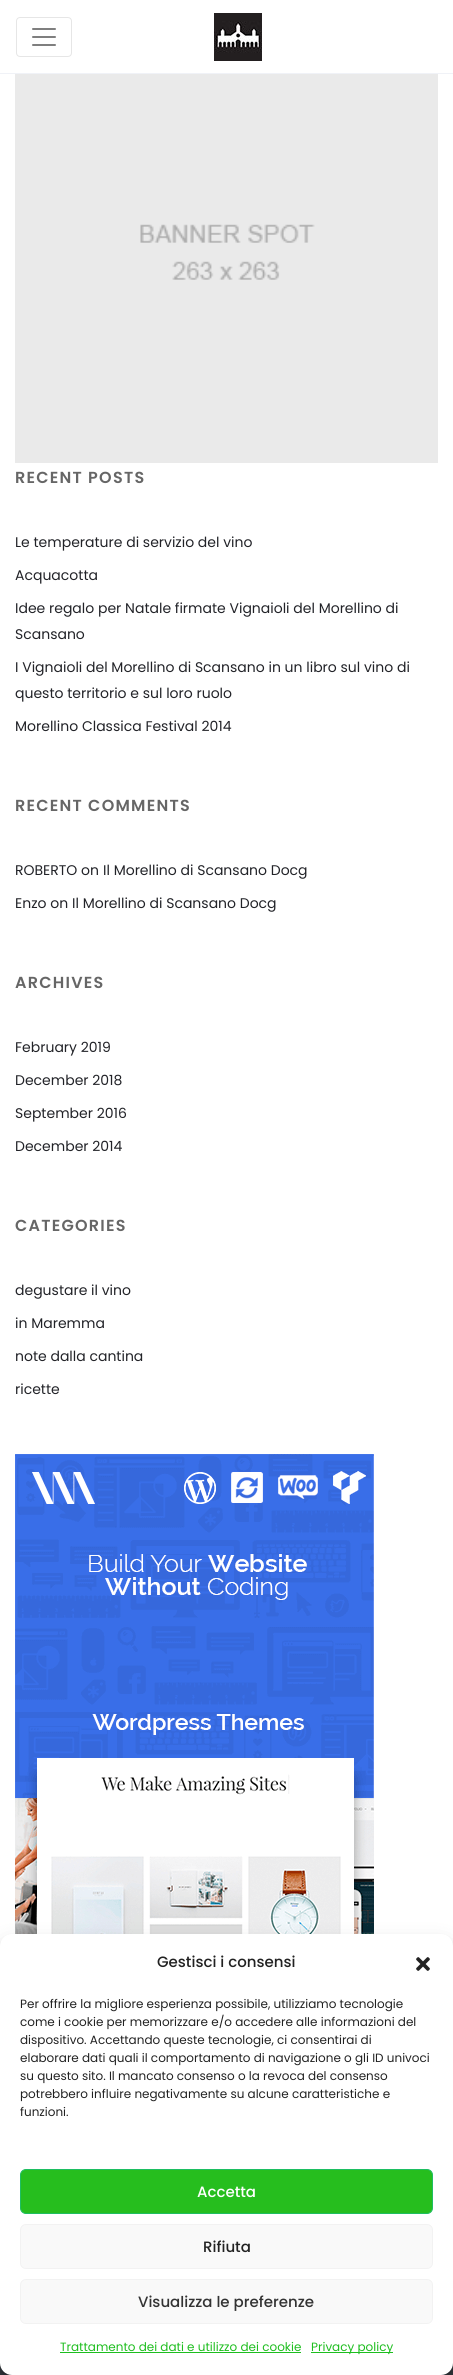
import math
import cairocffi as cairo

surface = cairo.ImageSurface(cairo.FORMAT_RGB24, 453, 2375)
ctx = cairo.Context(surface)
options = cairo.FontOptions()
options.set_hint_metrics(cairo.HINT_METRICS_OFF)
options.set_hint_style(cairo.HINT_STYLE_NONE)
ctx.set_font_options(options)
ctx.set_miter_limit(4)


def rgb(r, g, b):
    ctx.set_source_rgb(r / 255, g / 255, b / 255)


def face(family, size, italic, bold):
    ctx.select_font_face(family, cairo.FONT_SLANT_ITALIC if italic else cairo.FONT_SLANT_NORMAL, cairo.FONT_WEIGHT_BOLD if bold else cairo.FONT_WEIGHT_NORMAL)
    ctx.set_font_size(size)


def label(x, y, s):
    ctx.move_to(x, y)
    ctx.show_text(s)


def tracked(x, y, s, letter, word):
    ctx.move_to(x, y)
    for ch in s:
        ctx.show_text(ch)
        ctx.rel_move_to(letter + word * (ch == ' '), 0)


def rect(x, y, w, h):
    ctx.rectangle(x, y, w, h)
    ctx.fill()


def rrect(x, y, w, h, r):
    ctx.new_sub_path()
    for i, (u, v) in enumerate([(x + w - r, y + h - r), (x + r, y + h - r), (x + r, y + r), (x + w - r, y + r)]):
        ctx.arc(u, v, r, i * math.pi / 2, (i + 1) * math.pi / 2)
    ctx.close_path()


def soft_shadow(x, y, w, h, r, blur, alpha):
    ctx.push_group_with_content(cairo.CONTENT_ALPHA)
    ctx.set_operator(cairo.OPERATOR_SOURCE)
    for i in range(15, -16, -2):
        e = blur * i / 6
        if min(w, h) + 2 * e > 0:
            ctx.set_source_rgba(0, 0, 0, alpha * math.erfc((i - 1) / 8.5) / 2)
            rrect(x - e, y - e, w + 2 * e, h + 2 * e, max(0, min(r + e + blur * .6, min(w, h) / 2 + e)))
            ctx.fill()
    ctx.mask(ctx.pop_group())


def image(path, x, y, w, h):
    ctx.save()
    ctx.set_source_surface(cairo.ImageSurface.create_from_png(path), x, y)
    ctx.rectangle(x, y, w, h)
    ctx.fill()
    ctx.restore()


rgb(255, 255, 255)
ctx.paint()
rgb(240, 242, 247)
rect(0, 73, 453, 1)
rrect(16.5, 17.5, 55, 39, 3.5)
rgb(230, 230, 230)
ctx.set_line_width(1)
ctx.stroke()
image('image0.png', 32, 28, 24, 18)
image('image1.png', 214, 13, 48, 48)
image('image2.png', 15, 74, 423, 389)
face('Poppins SemiBold', 16, 0, 0)
rgb(102, 102, 102)
tracked(15, 483, 'RECENT POSTS', 1.25, 0)
face('Poppins', 14, 0, 0)
rgb(34, 35, 40)
label(15, 547, 'Le temperature di servizio del vino')
label(15, 580, 'Acquacotta')
label(15, 613, 'Idee regalo per Natale firmate Vignaioli del Morellino di')
label(15, 639, 'Scansano')
label(15, 672, 'I Vignaioli del Morellino di Scansano in un libro sul vino di')
label(15, 698, 'questo territorio e sul loro ruolo')
label(15, 731, 'Morellino Classica Festival 2014')
face('Poppins SemiBold', 16, 0, 0)
rgb(102, 102, 102)
tracked(15, 811, 'RECENT COMMENTS', 1.25, 0)
face('Poppins', 14, 0, 0)
rgb(34, 35, 40)
label(15, 875, 'ROBERTO on')
label(103, 875, 'Il Morellino di Scansano Docg')
label(15, 908, 'Enzo on')
label(72, 908, 'Il Morellino di Scansano Docg')
face('Poppins SemiBold', 16, 0, 0)
rgb(102, 102, 102)
tracked(15, 988, 'ARCHIVES', 1.25, 0)
face('Poppins', 14, 0, 0)
rgb(34, 35, 40)
label(15, 1052, 'February 2019')
label(15, 1085, 'December 2018')
label(15, 1118, 'September 2016')
label(15, 1151, 'December 2014')
face('Poppins SemiBold', 16, 0, 0)
rgb(102, 102, 102)
tracked(15, 1231, 'CATEGORIES', 1.25, 0)
face('Poppins', 14, 0, 0)
rgb(34, 35, 40)
label(15, 1295, 'degustare il vino')
label(15, 1328, 'in Maremma')
label(15, 1361, 'note dalla cantina')
label(15, 1394, 'ricette')
image('image3.png', 15, 1454, 359, 480)
rgb(52, 58, 64)
rect(0, 2363, 453, 12)
rgb(0, 0, 0)
soft_shadow(0, 1940, 453, 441, 12, 3, 0.23)
soft_shadow(0, 1944, 453, 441, 12, 10, 0.19)
rgb(255, 255, 255)
rrect(0, 1934, 453, 441, 12)
ctx.fill()
face('Poppins Medium', 15, 0, 0)
rgb(34, 34, 34)
label(157, 1967, 'Gestisci i consensi')
image('image4.png', 416, 1957, 14, 14)
face('Poppins', 12, 0, 0)
label(20, 2008, 'Per offrire la migliore esperienza possibile, utilizziamo tecnologie')
label(20, 2026, 'come i cookie per memorizzare e/o accedere alle informazioni del')
label(20, 2044, 'dispositivo. Accettando queste tecnologie, ci consentirai di')
label(20, 2062, 'elaborare dati quali il comportamento di navigazione o gli ID univoci')
label(20, 2080, 'su questo sito. Il mancato consenso o la revoca del consenso')
label(20, 2098, 'potrebbero influire negativamente su alcune caratteristiche e')
label(20, 2116, 'funzioni.')
rgb(38, 190, 30)
rrect(20.5, 2169.5, 412, 44, 5.5)
ctx.fill_preserve()
rgb(30, 190, 98)
ctx.stroke()
face('Poppins Medium', 15, 0, 0)
rgb(255, 255, 255)
label(197, 2197, 'Accetta')
rgb(249, 249, 249)
rrect(20.5, 2224.5, 412, 44, 5.5)
ctx.fill_preserve()
rgb(242, 242, 242)
ctx.stroke()
rgb(34, 34, 34)
label(203, 2252, 'Rifiuta')
rgb(249, 249, 249)
rrect(20.5, 2279.5, 412, 44, 5.5)
ctx.fill_preserve()
rgb(242, 242, 242)
ctx.stroke()
rgb(51, 51, 51)
label(138, 2307, 'Visualizza le preferenze')
face('Poppins', 12, 0, 0)
rgb(30, 190, 31)
label(60, 2351, 'Trattamento dei dati e utilizzo dei cookie')
rect(60, 2352, 241, 1)
rect(311, 2352, 82, 1)
label(311, 2351, 'Privacy policy')
surface.write_to_png('render.png')
